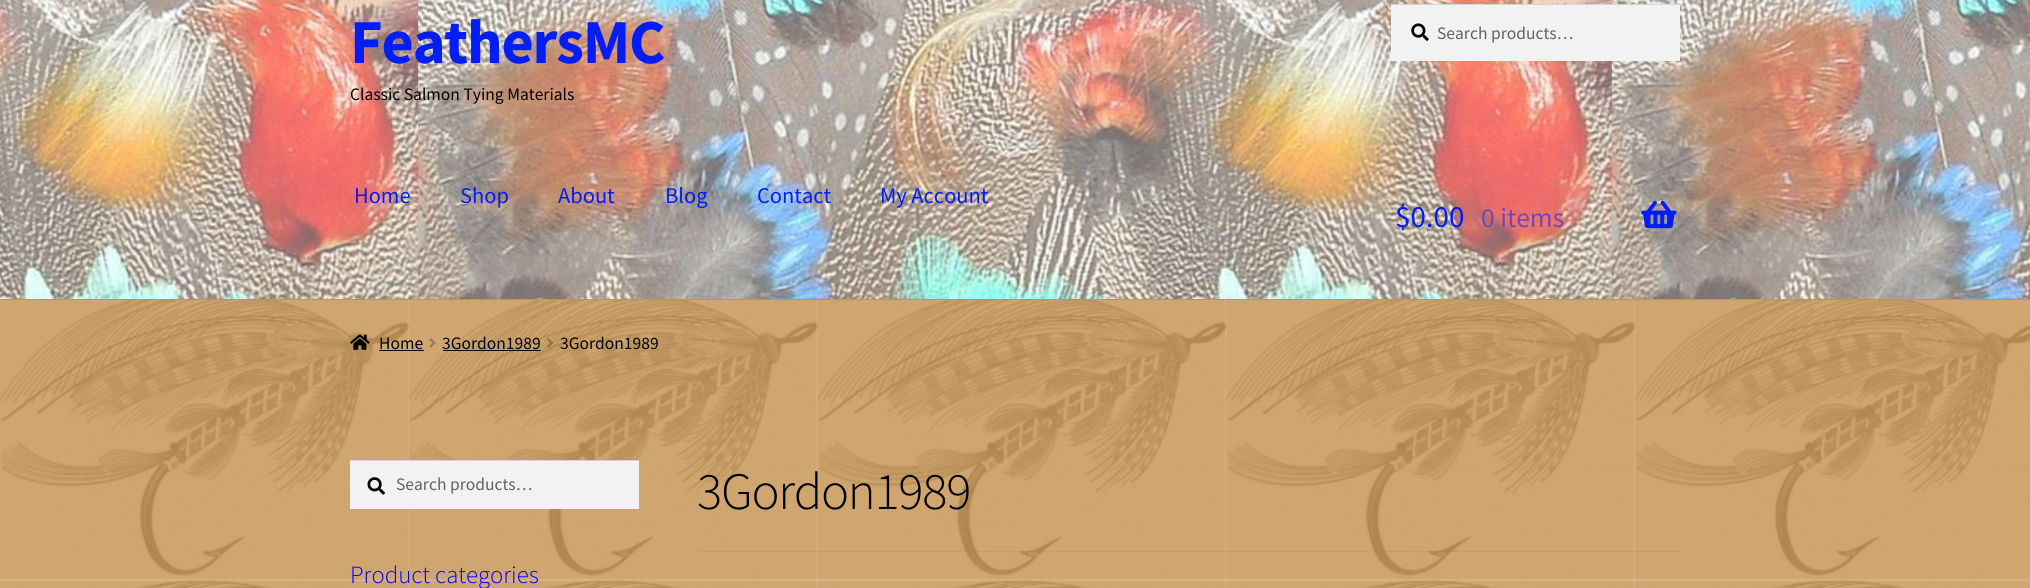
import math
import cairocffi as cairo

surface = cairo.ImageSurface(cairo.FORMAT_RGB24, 2030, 588)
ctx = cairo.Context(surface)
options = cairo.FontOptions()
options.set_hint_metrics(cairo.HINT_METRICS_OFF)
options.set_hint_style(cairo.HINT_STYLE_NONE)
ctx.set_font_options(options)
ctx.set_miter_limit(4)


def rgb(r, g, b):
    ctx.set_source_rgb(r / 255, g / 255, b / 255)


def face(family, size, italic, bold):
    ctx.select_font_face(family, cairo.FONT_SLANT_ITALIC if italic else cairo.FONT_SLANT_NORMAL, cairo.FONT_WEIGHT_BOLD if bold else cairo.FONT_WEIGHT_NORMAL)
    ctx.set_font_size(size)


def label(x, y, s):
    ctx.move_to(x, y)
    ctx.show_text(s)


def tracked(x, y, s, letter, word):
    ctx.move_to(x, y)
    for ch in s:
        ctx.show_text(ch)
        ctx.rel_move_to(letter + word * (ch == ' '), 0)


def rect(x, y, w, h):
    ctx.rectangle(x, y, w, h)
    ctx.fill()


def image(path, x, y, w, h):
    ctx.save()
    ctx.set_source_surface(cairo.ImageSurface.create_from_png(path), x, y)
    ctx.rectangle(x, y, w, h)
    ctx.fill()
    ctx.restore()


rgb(255, 255, 255)
ctx.paint()
image('image0.png', 0, 300, 2030, 288)
image('image1.png', 0, 0, 2030, 299)
rgb(183, 149, 94)
rect(0, 299, 2030, 1)
face('Source Sans Pro', 62.5, 0, 1)
rgb(2, 30, 244)
tracked(350, 63, 'FeathersMC', -1.25, 0)
face('Source Sans Pro', 17.5, 0, 0)
rgb(0, 0, 0)
label(350, 100, 'Classic Salmon Tying Materials')
rgb(242, 242, 242)
rect(1391, 5, 289, 56)
image('image2.png', 1411, 23, 18, 18)
rgb(212, 212, 212)
rect(1391, 4, 289, 1)
rgb(97, 97, 97)
label(1437, 39, 'Search products…')
face('Source Sans Pro', 22.5, 0, 0)
rgb(2, 30, 244)
label(354, 203, 'Home')
label(460, 203, 'Shop')
label(558, 203, 'About')
label(665, 203, 'Blog')
label(757, 203, 'Contact')
label(880, 203, 'My Account')
face('Source Sans Pro', 31, 0, 0)
label(1395, 227, '$0.00')
face('Source Sans Pro', 27.5, 0, 0)
rgb(115, 72, 176)
label(1481, 227, '0 items')
image('image3.png', 1641, 200, 36, 29)
image('image4.png', 350, 334, 20, 16)
face('Source Sans Pro', 17.5, 0, 0)
rgb(0, 0, 0)
label(379, 349, 'Home')
rgb(5, 5, 5)
rect(379, 350, 45, 1)
image('image5.png', 429, 338, 7, 10)
rgb(0, 0, 0)
label(442, 349, '3Gordon1989')
rgb(5, 5, 5)
rect(443, 350, 98, 1)
image('image6.png', 547, 338, 6, 10)
rgb(0, 0, 0)
label(560, 349, '3Gordon1989')
rgb(242, 242, 242)
rect(350, 461, 289, 48)
image('image7.png', 367, 477, 18, 18)
rgb(212, 212, 212)
rect(350, 460, 289, 1)
rgb(97, 97, 97)
label(396, 490, 'Search products…')
face('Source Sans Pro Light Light', 24.75, 0, 0)
rgb(0, 0, 255)
label(350, 583, 'Product categories')
ctx.set_source_rgba(0, 0, 0, 0.05)
rect(698, 551, 982, 1)
face('Source Sans Pro Light Light', 52.5, 0, 0)
rgb(0, 0, 0)
tracked(697, 509, '3Gordon1989', -1.25, 0)
surface.write_to_png('render.png')
